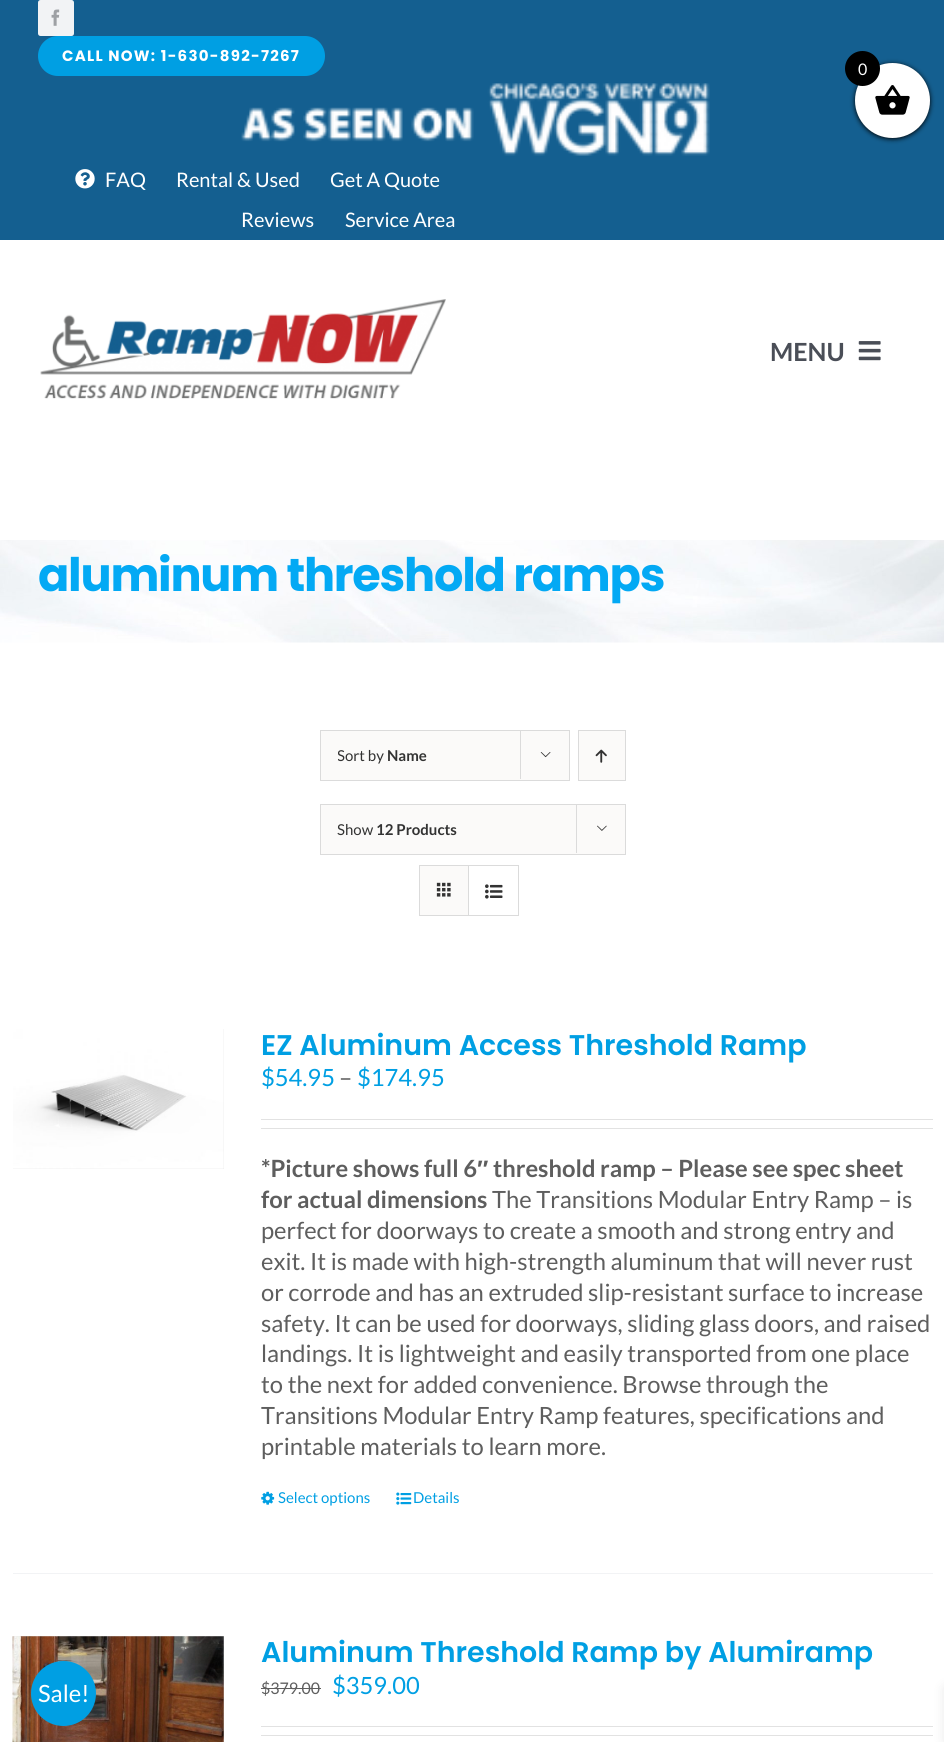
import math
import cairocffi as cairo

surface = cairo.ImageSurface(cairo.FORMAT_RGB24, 944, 1742)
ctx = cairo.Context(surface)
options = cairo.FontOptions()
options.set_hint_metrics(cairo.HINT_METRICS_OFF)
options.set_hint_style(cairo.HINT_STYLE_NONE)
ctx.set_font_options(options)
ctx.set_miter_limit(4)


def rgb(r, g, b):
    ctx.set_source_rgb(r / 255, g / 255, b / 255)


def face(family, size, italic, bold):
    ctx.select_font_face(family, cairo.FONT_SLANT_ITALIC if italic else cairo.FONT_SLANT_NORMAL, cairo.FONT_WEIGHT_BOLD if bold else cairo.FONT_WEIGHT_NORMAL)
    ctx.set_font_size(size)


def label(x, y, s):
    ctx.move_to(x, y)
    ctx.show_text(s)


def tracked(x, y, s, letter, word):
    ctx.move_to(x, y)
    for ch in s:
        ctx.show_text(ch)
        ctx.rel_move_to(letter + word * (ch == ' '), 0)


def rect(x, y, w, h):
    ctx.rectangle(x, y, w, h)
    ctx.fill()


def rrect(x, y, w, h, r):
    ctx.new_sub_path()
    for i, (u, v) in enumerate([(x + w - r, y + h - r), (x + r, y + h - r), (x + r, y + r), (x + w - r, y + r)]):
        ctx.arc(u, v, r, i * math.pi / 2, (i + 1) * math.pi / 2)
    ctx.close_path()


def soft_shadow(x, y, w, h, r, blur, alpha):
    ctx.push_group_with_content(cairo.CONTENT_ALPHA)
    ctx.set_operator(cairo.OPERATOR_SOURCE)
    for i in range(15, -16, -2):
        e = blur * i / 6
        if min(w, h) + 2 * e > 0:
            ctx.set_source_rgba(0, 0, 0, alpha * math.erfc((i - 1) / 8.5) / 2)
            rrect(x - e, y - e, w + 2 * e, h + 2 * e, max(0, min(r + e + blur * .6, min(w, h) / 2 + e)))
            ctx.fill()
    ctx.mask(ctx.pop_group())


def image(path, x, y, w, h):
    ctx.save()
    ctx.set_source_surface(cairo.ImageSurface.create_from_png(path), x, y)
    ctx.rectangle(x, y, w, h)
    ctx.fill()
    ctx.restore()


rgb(255, 255, 255)
ctx.paint()
rgb(20, 95, 144)
rect(0, 0, 944, 240)
rgb(242, 243, 245)
rrect(38, 0, 36, 36, 2.5)
ctx.fill()
image('image0.png', 51, 9, 9, 17)
rgb(0, 159, 227)
rrect(38, 36, 287, 40, 20)
ctx.fill()
face('Poppins', 15, 0, 1)
rgb(255, 255, 255)
tracked(62, 61, 'CALL NOW: 1-630-892-7267', 1.25, 0)
image('image1.png', 241, 83, 469, 73)
image('image2.png', 75, 169, 20, 20)
face('Lato', 20, 0, 0)
label(105, 187, 'FAQ')
label(176, 187, 'Rental & Used')
label(330, 187, 'Get A Quote')
label(241, 227, 'Reviews')
label(345, 227, 'Service Area')
image('image3.png', 40, 299, 406, 100)
face('Lato', 25, 0, 1)
rgb(74, 78, 87)
label(770, 361, 'MENU')
image('image4.png', 858, 341, 23, 20)
image('image5.png', 0, 540, 944, 103)
face('Poppins', 46.2, 0, 1)
rgb(3, 169, 244)
tracked(38, 591, 'aluminum threshold ramps', -1.25, 0)
rgb(251, 250, 249)
ctx.rectangle(320.5, 730.5, 249, 50)
ctx.fill_preserve()
rgb(219, 219, 219)
ctx.set_line_width(1)
ctx.stroke()
ctx.save()
ctx.rectangle(338, 731, 166, 49)
ctx.clip()
face('Lato', 15, 0, 0)
rgb(51, 51, 51)
label(337, 761, 'Sort by')
ctx.restore()
face('Lato', 15, 0, 1)
rgb(51, 51, 51)
label(387, 761, 'Name')
rgb(219, 219, 219)
rect(520, 730, 1, 49)
image('image6.png', 540, 752, 11, 6)
rgb(251, 250, 249)
ctx.rectangle(578.5, 730.5, 47, 50)
ctx.fill_preserve()
rgb(219, 219, 219)
ctx.stroke()
image('image7.png', 595, 749, 12, 14)
rgb(251, 250, 249)
ctx.rectangle(320.5, 804.5, 305, 50)
ctx.fill_preserve()
rgb(219, 219, 219)
ctx.stroke()
face('Lato', 15, 0, 0)
rgb(51, 51, 51)
label(337, 835, 'Show')
face('Lato', 15, 0, 1)
label(376, 835, '12 Products')
rgb(219, 219, 219)
rect(576, 804, 1, 49)
image('image8.png', 597, 825, 10, 6)
ctx.rectangle(419.5, 865.5, 99, 50)
ctx.stroke()
rgb(251, 250, 249)
rect(420, 866, 48, 49)
rgb(219, 219, 219)
rect(468, 866, 1, 49)
image('image9.png', 436, 882, 15, 15)
image('image10.png', 485, 884, 18, 15)
rgb(242, 243, 245)
rect(13, 1573, 920, 1)
rgb(226, 226, 226)
rect(13, 1029, 211, 140)
image('image11.png', 13, 1029, 211, 140)
face('Poppins SemiBold', 28.5, 0, 0)
rgb(0, 159, 227)
label(261, 1055, 'EZ Aluminum Access Threshold Ramp')
face('Lato', 23.75, 0, 0)
label(261, 1086, '$54.95')
rgb(94, 94, 94)
label(339, 1086, '–')
rgb(0, 159, 227)
label(357, 1086, '$174.95')
rgb(226, 226, 226)
rect(261, 1119, 672, 1)
rect(261, 1128, 672, 1)
face('Lato', 23.75, 0, 1)
rgb(94, 94, 94)
label(261, 1177, '*Picture shows full 6')
face('Liberation Sans', 23.75, 0, 1)
label(477, 1177, '″')
face('Lato', 23.75, 0, 1)
label(493, 1177, 'threshold ramp – Please see spec sheet')
label(261, 1208, 'for actual dimensions')
face('Lato', 23.75, 0, 0)
label(492, 1208, 'The Transitions Modular Entry Ramp – is')
label(261, 1239, 'perfect for doorways to create a smooth and strong entry and')
label(261, 1270, 'exit. It is made with high-strength aluminum that will never rust')
label(261, 1301, 'or corrode and has an extruded slip-resistant surface to increase')
label(261, 1332, 'safety. It can be used for doorways, sliding glass doors, and raised')
label(261, 1362, 'landings. It is lightweight and easily transported from one place')
label(261, 1393, 'to the next for added convenience. Browse through the')
label(261, 1424, 'Transitions Modular Entry Ramp features, specifications and')
label(261, 1455, 'printable materials to learn more.')
image('image12.png', 261, 1491, 14, 14)
face('Lato', 15, 0, 0)
rgb(0, 159, 227)
label(278, 1503, 'Select options')
image('image13.png', 396, 1492, 16, 13)
label(413, 1503, 'Details')
rgb(226, 226, 226)
rect(13, 1636, 211, 106)
image('image14.png', 12, 1636, 212, 106)
rgb(0, 159, 227)
ctx.arc(63.5, 1693.5, 32.5, 0, 2 * math.pi)
ctx.fill()
face('Lato', 23.75, 0, 0)
rgb(255, 255, 255)
label(38, 1702, 'Sale!')
face('Poppins SemiBold', 28.5, 0, 0)
rgb(0, 159, 227)
label(261, 1662, 'Aluminum Threshold Ramp by Alumiramp')
face('Lato', 16, 0, 0)
rgb(94, 94, 94)
label(261, 1694, '$379.00')
rect(261, 1688, 60, 1)
face('Lato', 23.75, 0, 0)
rgb(0, 159, 227)
label(332, 1694, '$359.00')
rgb(226, 226, 226)
rect(261, 1726, 672, 1)
rect(261, 1735, 672, 1)
rgb(0, 0, 0)
soft_shadow(855, 64, 75, 75, 37.5, 2.5, 1)
rgb(255, 255, 255)
ctx.arc(892.5, 100.5, 37.5, 0, 2 * math.pi)
ctx.fill()
image('image15.png', 875, 85, 35, 30)
rgb(0, 0, 0)
ctx.arc(862.5, 68.5, 17.5, 0, 2 * math.pi)
ctx.fill()
face('Lato', 16, 0, 0)
rgb(255, 255, 255)
label(858, 75, '0')
rgb(0, 0, 0)
soft_shadow(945, 1688, 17, 53, 0, 6, 0.1)
surface.write_to_png('render.png')
